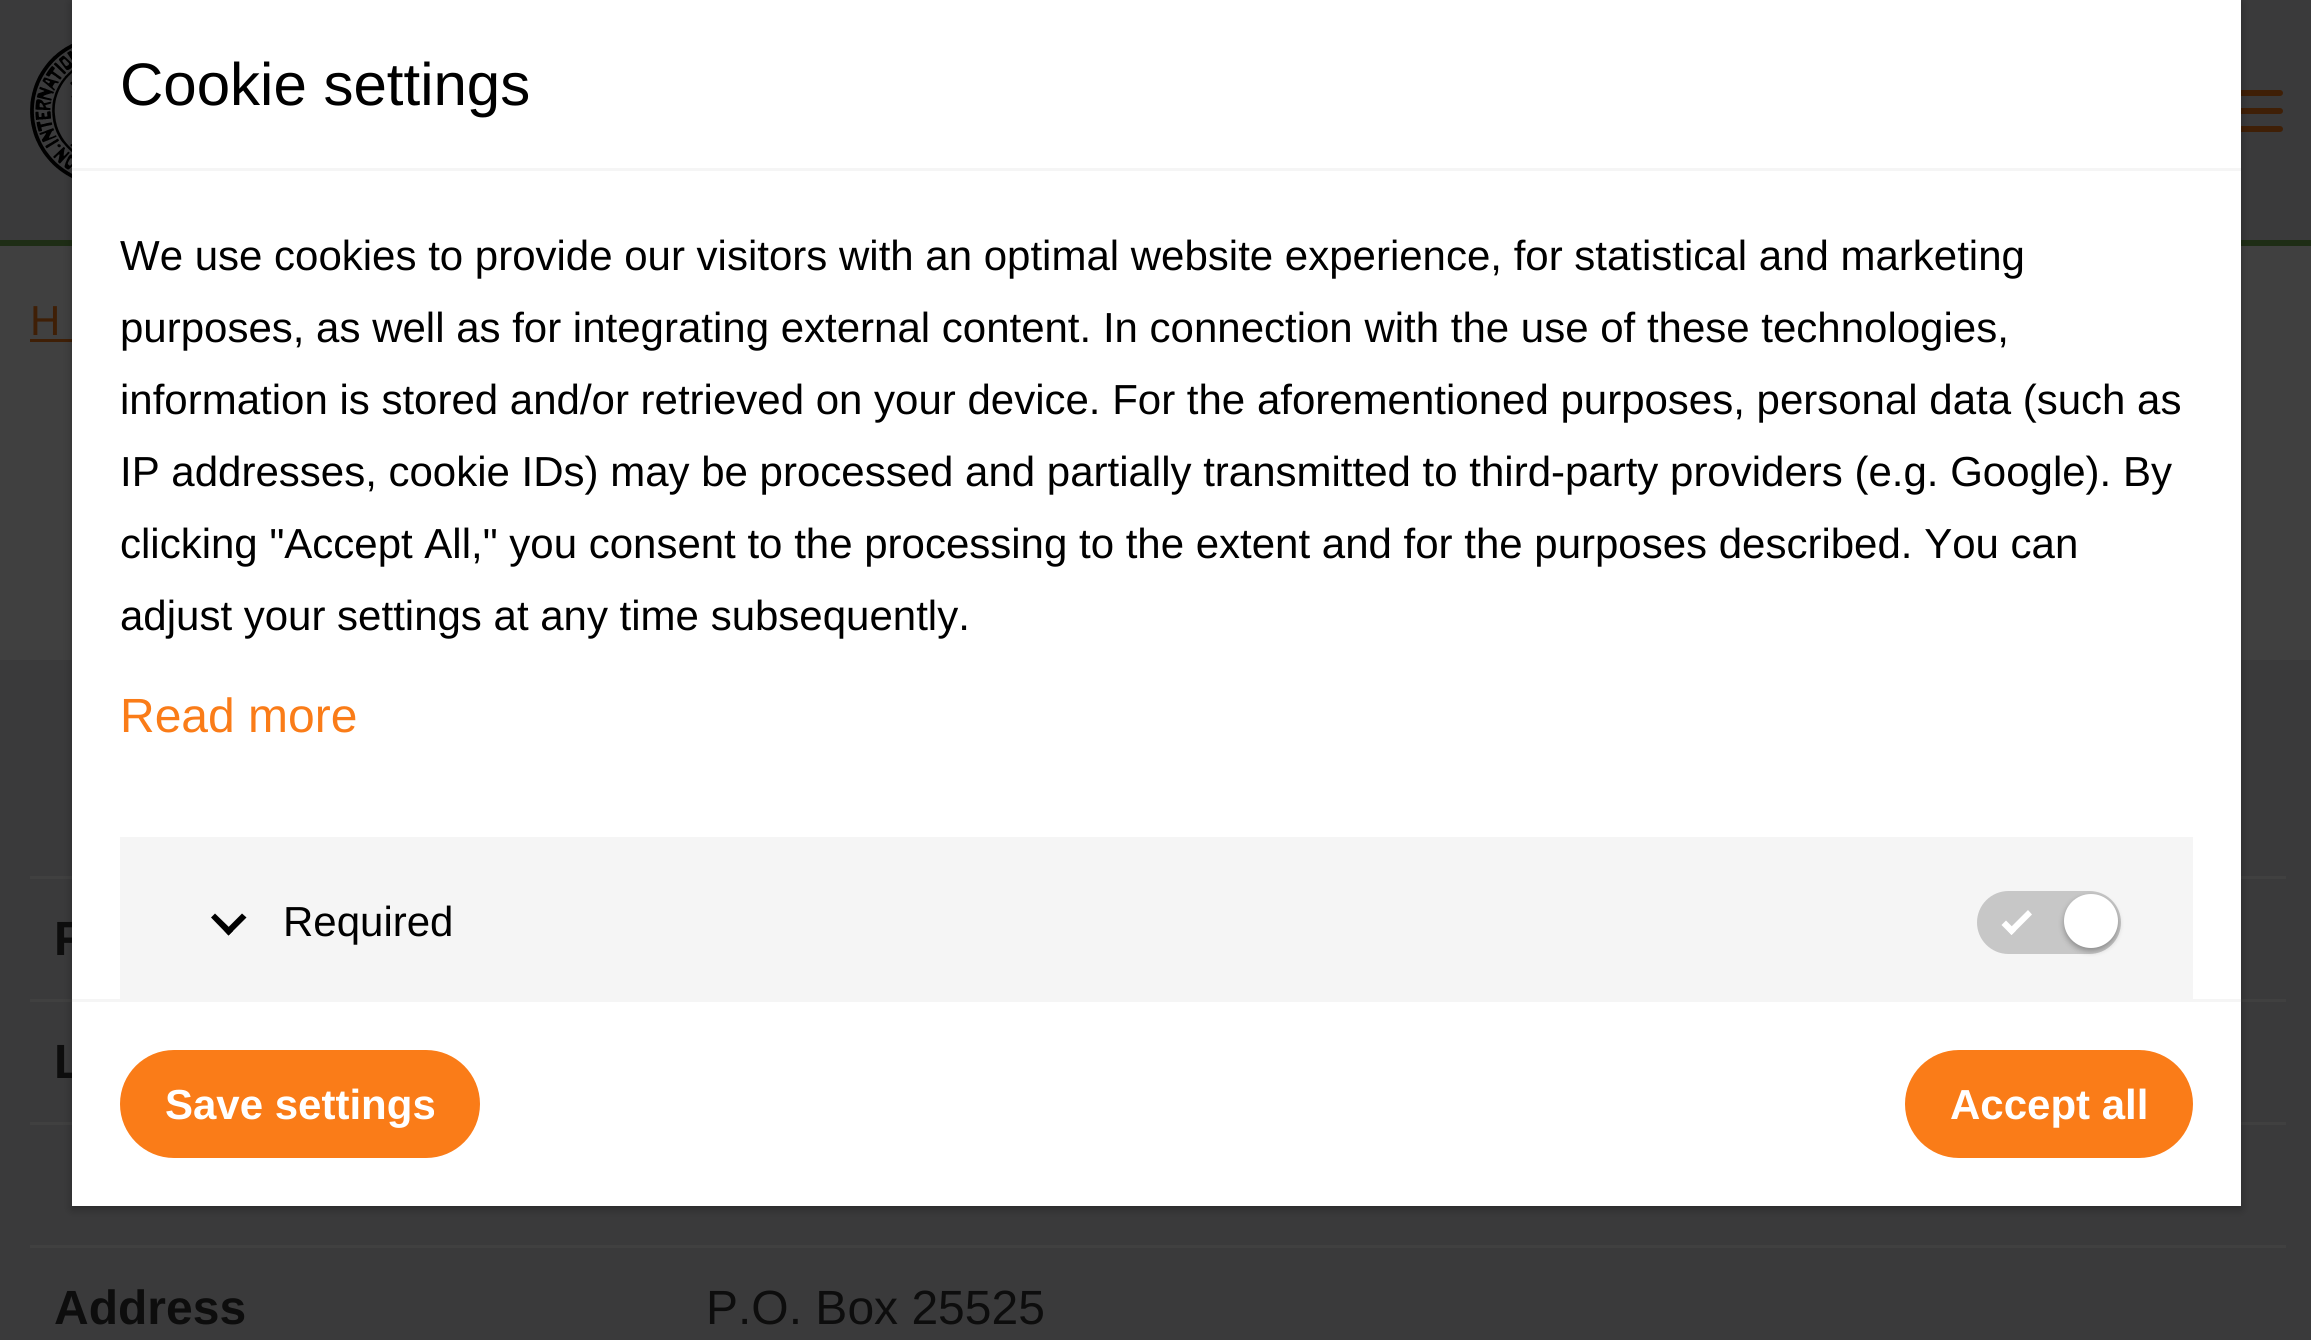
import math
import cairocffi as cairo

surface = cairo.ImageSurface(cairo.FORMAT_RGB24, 2311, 1340)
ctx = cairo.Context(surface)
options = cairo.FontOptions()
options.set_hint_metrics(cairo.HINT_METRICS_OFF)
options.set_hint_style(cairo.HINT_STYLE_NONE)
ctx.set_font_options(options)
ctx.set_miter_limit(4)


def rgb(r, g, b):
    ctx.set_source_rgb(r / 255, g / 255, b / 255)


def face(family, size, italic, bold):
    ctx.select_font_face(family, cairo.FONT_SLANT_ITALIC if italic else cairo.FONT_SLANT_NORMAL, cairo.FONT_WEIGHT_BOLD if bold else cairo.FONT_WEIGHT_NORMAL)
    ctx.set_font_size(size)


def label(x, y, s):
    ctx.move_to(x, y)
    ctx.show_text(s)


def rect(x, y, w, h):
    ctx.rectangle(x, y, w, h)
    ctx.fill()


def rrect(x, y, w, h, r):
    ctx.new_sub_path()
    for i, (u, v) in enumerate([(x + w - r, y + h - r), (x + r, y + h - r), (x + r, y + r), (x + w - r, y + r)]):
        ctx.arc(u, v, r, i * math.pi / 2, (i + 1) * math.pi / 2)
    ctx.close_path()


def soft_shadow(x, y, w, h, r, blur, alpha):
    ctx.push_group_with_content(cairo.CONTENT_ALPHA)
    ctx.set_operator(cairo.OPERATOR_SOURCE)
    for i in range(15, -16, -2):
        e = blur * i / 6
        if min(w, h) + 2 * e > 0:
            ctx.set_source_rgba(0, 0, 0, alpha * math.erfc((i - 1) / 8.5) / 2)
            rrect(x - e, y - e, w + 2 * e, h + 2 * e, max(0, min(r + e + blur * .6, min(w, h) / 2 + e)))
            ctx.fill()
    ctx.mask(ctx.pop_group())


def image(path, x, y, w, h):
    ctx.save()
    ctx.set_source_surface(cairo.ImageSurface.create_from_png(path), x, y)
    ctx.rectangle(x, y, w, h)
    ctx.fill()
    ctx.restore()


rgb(64, 64, 64)
ctx.paint()
rgb(58, 58, 59)
rect(0, 0, 2311, 240)
rgb(30, 45, 21)
rect(0, 240, 2311, 6)
image('image0.png', 30, 44, 42, 134)
rgb(63, 31, 6)
rrect(2205, 108, 78, 6, 3)
ctx.fill()
rrect(2205, 90, 78, 6, 3)
ctx.fill()
rrect(2205, 126, 78, 6, 3)
ctx.fill()
rect(30, 339, 42, 3)
rgb(58, 58, 59)
rect(0, 660, 2311, 680)
rgb(64, 64, 64)
rect(30, 876, 42, 3)
rect(2241, 876, 45, 3)
rect(30, 999, 42, 3)
rect(2241, 999, 45, 3)
rect(30, 1122, 42, 3)
rect(2241, 1122, 45, 3)
rgb(0, 0, 0)
soft_shadow(72, 3, 2169, 1206, 0, 4.5, 0.3)
face('Liberation Sans', 48, 0, 1)
rgb(13, 13, 13)
label(54, 955, 'F')
label(54, 1078, 'L')
rgb(255, 255, 255)
rect(72, 0, 2169, 1206)
rgb(245, 245, 245)
rect(72, 168, 2169, 3)
face('Liberation Sans', 60, 0, 0)
rgb(0, 0, 0)
label(120, 105, 'Cookie settings')
face('Liberation Sans', 42, 0, 0)
label(120, 270, 'We use cookies to provide our visitors with an optimal website experience, for statistical and marketing')
label(120, 342, 'purposes, as well as for integrating external content. In connection with the use of these technologies,')
label(120, 414, 'information is stored and/or retrieved on your device. For the aforementioned purposes, personal data (such as')
label(120, 486, 'IP addresses, cookie IDs) may be processed and partially transmitted to third-party providers (e.g. Google). By')
label(120, 558, 'clicking "Accept All," you consent to the processing to the extent and for the purposes described. You can')
label(120, 630, 'adjust your settings at any time subsequently.')
face('Liberation Sans', 48, 0, 0)
rgb(250, 124, 24)
label(120, 732, 'Read more')
rgb(245, 245, 245)
rect(120, 837, 2073, 162)
rgb(0, 0, 0)
ctx.new_path()
ctx.move_to(242, 913.5)
ctx.line_to(246.5, 917.5)
ctx.line_to(228.5, 935.5)
ctx.line_to(224.5, 931)
ctx.close_path()
ctx.fill()
ctx.new_path()
ctx.move_to(215, 913.5)
ctx.line_to(233, 931)
ctx.line_to(228.5, 935.5)
ctx.line_to(211, 917.5)
ctx.close_path()
ctx.fill()
face('Liberation Sans', 42, 0, 0)
label(283, 936, 'Required')
rgb(199, 199, 199)
rrect(1977, 891, 144, 63, 31.5)
ctx.fill()
rgb(255, 255, 255)
ctx.new_path()
ctx.move_to(2028, 910)
ctx.line_to(2032, 914.5)
ctx.line_to(2011.5, 935)
ctx.line_to(2007.5, 930.5)
ctx.close_path()
ctx.fill()
ctx.new_path()
ctx.move_to(2006, 920.5)
ctx.line_to(2016, 930.5)
ctx.line_to(2011.5, 935)
ctx.line_to(2001.5, 925)
ctx.close_path()
ctx.fill()
rgb(0, 0, 0)
soft_shadow(2064, 897, 54, 54, 27, 3, 0.3)
rgb(255, 255, 255)
ctx.arc(2091, 921, 27, 0, 2 * math.pi)
ctx.fill()
rgb(245, 245, 245)
rect(72, 999, 2169, 3)
rgb(250, 124, 24)
rrect(121.5, 1051.5, 357, 105, 52.5)
ctx.fill_preserve()
ctx.set_line_width(3)
ctx.stroke()
face('Liberation Sans', 42, 0, 1)
rgb(255, 255, 255)
label(165, 1119, 'Save settings')
rgb(250, 124, 24)
rrect(1906.5, 1051.5, 285, 105, 52.5)
ctx.fill_preserve()
ctx.stroke()
rgb(255, 255, 255)
label(1950, 1119, 'Accept all')
face('Liberation Sans', 42, 0, 0)
rgb(63, 31, 6)
label(30, 335, 'H')
rgb(64, 64, 64)
rect(30, 1245, 2256, 3)
face('Liberation Sans', 48, 0, 1)
rgb(13, 13, 13)
label(54, 1324, 'Address')
face('Liberation Sans', 48, 0, 0)
label(706, 1324, 'P.O. Box 25525')
surface.write_to_png('render.png')
